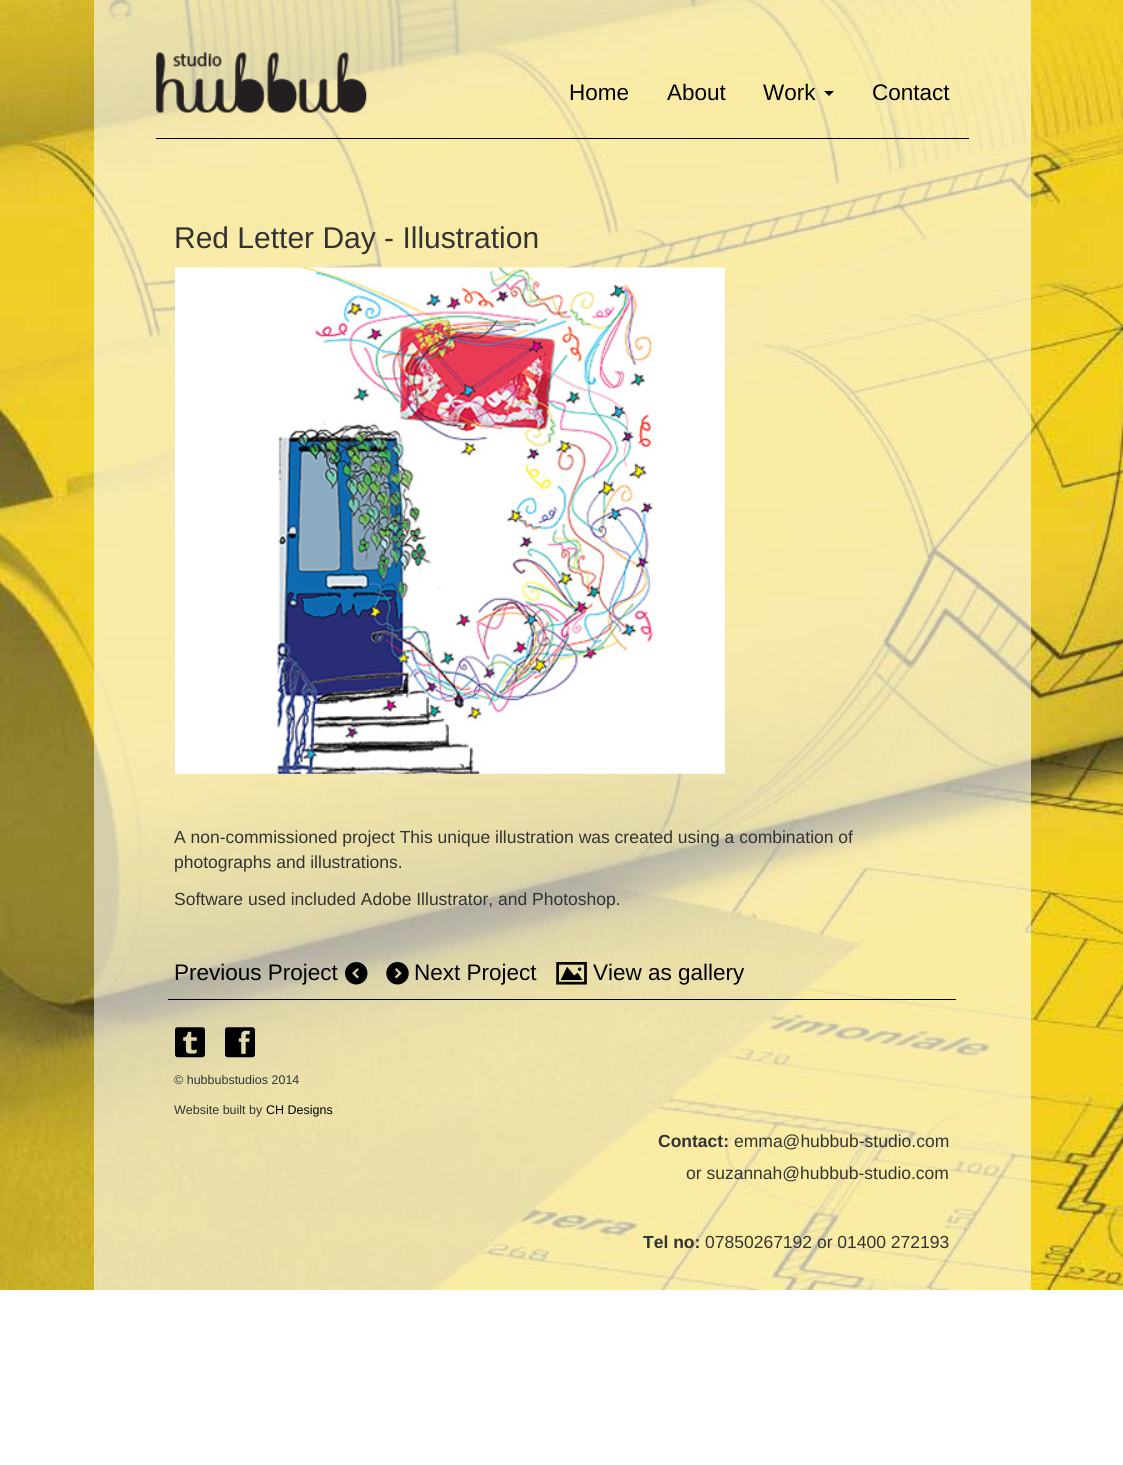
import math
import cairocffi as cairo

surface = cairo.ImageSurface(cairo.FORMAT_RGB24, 1123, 1465)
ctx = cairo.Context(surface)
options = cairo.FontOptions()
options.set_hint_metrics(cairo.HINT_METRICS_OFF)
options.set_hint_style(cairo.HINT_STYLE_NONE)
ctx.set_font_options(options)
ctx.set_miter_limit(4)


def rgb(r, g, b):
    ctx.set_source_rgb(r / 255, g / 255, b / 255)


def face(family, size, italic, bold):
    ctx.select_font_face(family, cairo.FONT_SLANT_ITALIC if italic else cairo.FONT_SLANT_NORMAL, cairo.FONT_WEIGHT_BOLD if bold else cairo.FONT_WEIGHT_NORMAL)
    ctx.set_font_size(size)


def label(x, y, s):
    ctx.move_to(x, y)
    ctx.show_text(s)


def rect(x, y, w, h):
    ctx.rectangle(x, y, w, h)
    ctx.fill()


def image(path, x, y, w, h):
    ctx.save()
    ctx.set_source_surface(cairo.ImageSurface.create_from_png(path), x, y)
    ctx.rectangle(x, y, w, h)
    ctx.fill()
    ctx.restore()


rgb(255, 255, 255)
ctx.paint()
image('image0.png', 0, 0, 1123, 1290)
ctx.set_source_rgba(1, 1, 1, 0.6)
rect(94, 0, 937, 164)
image('image1.png', 156, 52, 211, 61)
face('Liberation Sans', 22.5, 0, 0)
rgb(0, 0, 0)
label(569, 100, 'Home')
label(667, 100, 'About')
label(763, 100, 'Work')
ctx.new_path()
ctx.move_to(824, 91)
ctx.line_to(834, 91)
ctx.line_to(829, 96)
ctx.close_path()
ctx.fill()
label(872, 100, 'Contact')
rect(156, 138, 813, 1)
ctx.set_source_rgba(1, 1, 1, 0.6)
rect(94, 164, 937, 1126)
face('Liberation Sans', 30, 0, 0)
rgb(51, 51, 51)
label(174, 248, 'Red Letter Day - Illustration')
image('image2.png', 175, 267, 550, 507)
face('Liberation Sans', 17.5, 0, 0)
label(174, 843, 'A non-commissioned project This unique illustration was created using a combination of')
label(174, 868, 'photographs and illustrations.')
label(174, 905, 'Software used included Adobe Illustrator, and Photoshop.')
face('Liberation Sans', 22.5, 0, 0)
rgb(0, 0, 0)
label(174, 980, 'Previous Project')
image('image3.png', 345, 962, 23, 23)
image('image4.png', 386, 962, 23, 23)
label(414, 980, 'Next Project')
image('image5.png', 556, 962, 31, 23)
label(593, 980, 'View as gallery')
rect(168, 999, 788, 1)
image('image6.png', 175, 1027, 30, 31)
image('image7.png', 225, 1027, 30, 31)
face('Liberation Sans', 12.5, 0, 0)
rgb(51, 51, 51)
label(174, 1084, '© hubbubstudios 2014')
label(174, 1114, 'Website built by')
rgb(0, 0, 0)
label(266, 1114, 'CH Designs')
face('Liberation Sans', 17.5, 0, 1)
rgb(51, 51, 51)
label(658, 1147, 'Contact:')
face('Liberation Sans', 17.5, 0, 0)
label(734, 1147, 'emma@hubbub-studio.com')
label(686, 1179, 'or suzannah@hubbub-studio.com')
face('Liberation Sans', 17.5, 0, 1)
label(643, 1248, 'Tel no:')
face('Liberation Sans', 17.5, 0, 0)
label(705, 1248, '07850267192 or 01400 272193')
surface.write_to_png('render.png')
